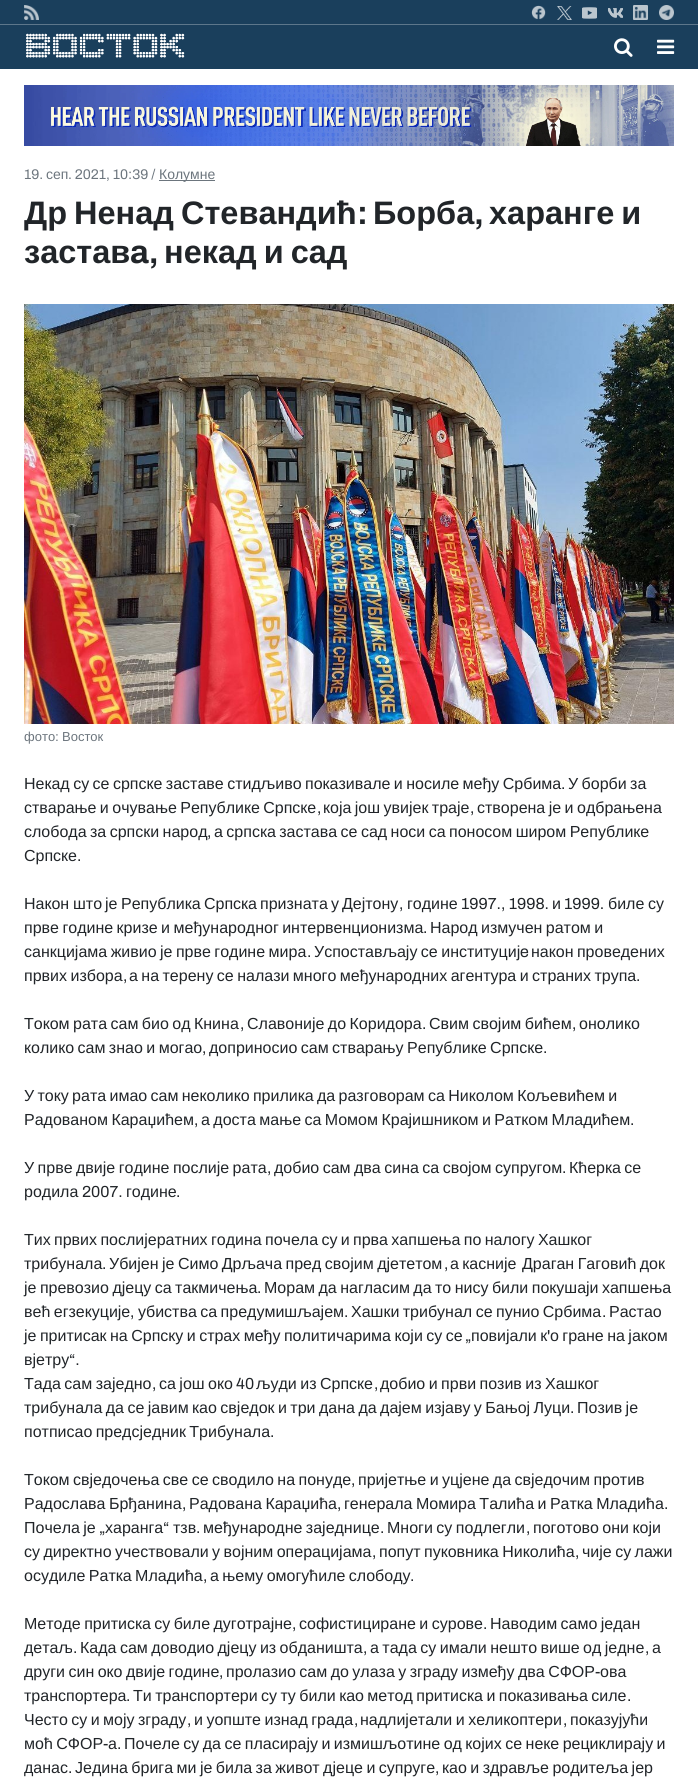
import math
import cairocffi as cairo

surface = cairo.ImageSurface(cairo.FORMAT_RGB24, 698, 1792)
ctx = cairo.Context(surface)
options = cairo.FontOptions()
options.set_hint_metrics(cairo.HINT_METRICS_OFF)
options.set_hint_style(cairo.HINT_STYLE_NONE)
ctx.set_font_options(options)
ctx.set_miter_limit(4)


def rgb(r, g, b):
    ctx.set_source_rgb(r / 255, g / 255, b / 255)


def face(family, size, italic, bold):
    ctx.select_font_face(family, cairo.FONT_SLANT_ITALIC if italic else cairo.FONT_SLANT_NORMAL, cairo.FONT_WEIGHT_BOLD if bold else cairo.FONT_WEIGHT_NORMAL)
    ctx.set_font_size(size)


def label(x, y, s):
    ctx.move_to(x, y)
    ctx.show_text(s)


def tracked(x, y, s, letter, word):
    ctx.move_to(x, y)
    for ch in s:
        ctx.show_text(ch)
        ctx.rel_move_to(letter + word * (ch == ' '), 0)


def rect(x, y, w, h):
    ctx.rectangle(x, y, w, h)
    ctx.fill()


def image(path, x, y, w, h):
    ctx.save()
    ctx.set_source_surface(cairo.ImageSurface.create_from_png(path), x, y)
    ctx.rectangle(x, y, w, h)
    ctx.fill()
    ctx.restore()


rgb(255, 255, 255)
ctx.paint()
rgb(26, 63, 92)
rect(0, 0, 698, 24)
rgb(93, 119, 139)
rect(0, 24, 698, 1)
image('image0.png', 24, 5, 15, 15)
image('image1.png', 531, 5, 15, 15)
image('image2.png', 557, 6, 15, 14)
image('image3.png', 582, 7, 15, 12)
image('image4.png', 608, 8, 15, 10)
image('image5.png', 633, 5, 15, 15)
image('image6.png', 659, 5, 15, 15)
rgb(26, 63, 92)
rect(0, 25, 698, 44)
image('image7.png', 26, 33, 159, 25)
image('image8.png', 614, 38, 19, 19)
image('image9.png', 657, 39, 18, 15)
image('image10.png', 24, 85, 650, 61)
face('Archivo', 14, 0, 0)
rgb(108, 117, 125)
label(24, 179, '19.')
face('Liberation Sans', 14, 0, 0)
label(46, 179, 'сеп')
face('Archivo', 14, 0, 0)
label(68, 179, '. 2021, 10:39 /')
rect(159, 180, 56, 1)
face('Liberation Sans', 14, 0, 0)
label(159, 179, 'Колумне')
face('Liberation Sans', 32.5, 0, 1)
rgb(33, 37, 41)
tracked(24, 224, 'Др Ненад Стевандић', 0, -2)
face('Archivo', 32.5, 0, 1)
label(357, 224, ':')
face('Liberation Sans', 32.5, 0, 1)
label(373, 224, 'Борба')
face('Archivo', 32.5, 0, 1)
label(474, 224, ',')
face('Liberation Sans', 32.5, 0, 1)
tracked(489, 224, 'харанге и', 0, -2)
label(24, 263, 'застав')
face('Archivo', 32.5, 0, 1)
label(130, 263, 'a,')
face('Liberation Sans', 32.5, 0, 1)
tracked(164, 263, 'некад и сад', 0, -2)
image('image11.png', 24, 304, 650, 420)
face('Liberation Sans', 13, 0, 0)
rgb(108, 117, 125)
label(24, 741, 'фото')
face('Archivo', 13, 0, 0)
label(55, 741, ':')
face('Liberation Sans', 13, 0, 0)
label(62, 741, 'Восток')
face('Liberation Sans', 16, 0, 0)
rgb(33, 37, 41)
tracked(24, 789, 'Некад су се српске заставе стидљиво показивале и носиле међу Србима', 0, -1)
face('Archivo', 16, 0, 0)
label(561, 789, '.')
face('Liberation Sans', 16, 0, 0)
tracked(568, 789, 'У борби за', 0, -1)
tracked(24, 813, 'стварање и очување Републике Српске', 0, -1)
face('Archivo', 16, 0, 0)
label(317, 813, ',')
face('Liberation Sans', 16, 0, 0)
tracked(323, 813, 'која још увијек траје', 0, -1)
face('Archivo', 16, 0, 0)
label(470, 813, ',')
face('Liberation Sans', 16, 0, 0)
tracked(477, 813, 'створена је и одбрањена', 0, -1)
tracked(24, 837, 'слобода за српски народ', 0, -1)
face('Archivo', 16, 0, 0)
label(207, 837, ',')
face('Liberation Sans', 16, 0, 0)
tracked(214, 837, 'а српска застава се сад носи са поносом широм Републике', 0, -1)
label(24, 861, 'Српске')
face('Archivo', 16, 0, 0)
label(77, 861, '.')
face('Liberation Sans', 16, 0, 0)
label(24, 909, 'Након')
label(73, 909, 'што')
label(105, 909, 'је')
label(121, 909, 'Република')
label(204, 909, 'Српска')
label(260, 909, 'призната')
label(331, 909, 'у')
label(342, 909, 'Дејтону')
face('Archivo', 16, 0, 0)
label(399, 909, ',')
face('Liberation Sans', 16, 0, 0)
label(407, 909, 'године')
face('Archivo', 16, 0, 0)
label(461, 909, '1997., 1998.')
face('Liberation Sans', 16, 0, 0)
label(552, 909, 'и')
face('Archivo', 16, 0, 0)
label(564, 909, '1999.')
face('Liberation Sans', 16, 0, 0)
label(608, 909, 'биле')
label(648, 909, 'су')
tracked(24, 933, 'прве године кризе и међународног интервенционизма', 0, -1)
face('Archivo', 16, 0, 0)
label(423, 933, '.')
face('Liberation Sans', 16, 0, 0)
tracked(430, 933, 'Народ измучен ратом и', 0, -1)
tracked(24, 957, 'санкцијама живио је прве године мира', 0, -1)
face('Archivo', 16, 0, 0)
label(307, 957, '.')
face('Liberation Sans', 16, 0, 0)
tracked(314, 957, 'Успостављају се институциј', 0, -1)
face('Archivo', 16, 0, 0)
label(520, 957, 'e')
face('Liberation Sans', 16, 0, 0)
tracked(531, 957, 'након проведених', 0, -1)
tracked(24, 981, 'првих избора', 0, -1)
face('Archivo', 16, 0, 0)
label(123, 981, ',')
face('Liberation Sans', 16, 0, 0)
tracked(129, 981, 'а на терену се налази много међународних агентура и страних трупа', 0, -1)
face('Archivo', 16, 0, 0)
label(636, 981, '.')
face('Liberation Sans', 16, 0, 0)
tracked(24, 1029, 'Током рата сам био од Книна', 0, -1)
face('Archivo', 16, 0, 0)
label(240, 1029, ',')
face('Liberation Sans', 16, 0, 0)
tracked(247, 1029, 'Славоније до Коридора', 0, -1)
face('Archivo', 16, 0, 0)
label(422, 1029, '.')
face('Liberation Sans', 16, 0, 0)
tracked(429, 1029, 'Свим својим бићем', 0, -1)
face('Archivo', 16, 0, 0)
label(572, 1029, ',')
face('Liberation Sans', 16, 0, 0)
label(579, 1029, 'онолико')
tracked(24, 1053, 'колико сам знао и могао', 0, -1)
face('Archivo', 16, 0, 0)
label(202, 1053, ',')
face('Liberation Sans', 16, 0, 0)
tracked(209, 1053, 'доприносио сам стварању Републике Српске', 0, -1)
face('Archivo', 16, 0, 0)
label(543, 1053, '.')
face('Liberation Sans', 16, 0, 0)
tracked(24, 1101, 'У току рата имао сам неколико прилика да разговорам са Николом Кољевићем и', 0, -1.1)
tracked(24, 1125, 'Радованом Караџићем', 0, -1)
face('Archivo', 16, 0, 0)
label(194, 1125, ',')
face('Liberation Sans', 16, 0, 0)
tracked(201, 1125, 'а доста мање са Момом Крајишником и Ратком Младићем', 0, -1)
face('Archivo', 16, 0, 0)
label(630, 1125, '.')
face('Liberation Sans', 16, 0, 0)
tracked(24, 1173, 'У прве двије године послије рата', 0, -1)
face('Archivo', 16, 0, 0)
label(267, 1173, ',')
face('Liberation Sans', 16, 0, 0)
tracked(274, 1173, 'добио сам два сина са својом супругом', 0, -1)
face('Archivo', 16, 0, 0)
label(562, 1173, '.')
face('Liberation Sans', 16, 0, 0)
tracked(569, 1173, 'Кћерка се', 0, -1)
label(24, 1197, 'родила')
face('Archivo', 16, 0, 0)
label(82, 1197, '2007.')
face('Liberation Sans', 16, 0, 0)
label(126, 1197, 'године')
face('Archivo', 16, 0, 0)
label(176, 1197, '.')
face('Liberation Sans', 16, 0, 0)
tracked(24, 1245, 'Тих првих послијератних година почела су и прва хапшења по налогу Хашког', 0, -1.1)
label(24, 1269, 'трибунала')
face('Archivo', 16, 0, 0)
label(102, 1269, '.')
face('Liberation Sans', 16, 0, 0)
tracked(109, 1269, 'Убијен је Симо Дрљача пред својим дјететом', 0, -1)
face('Archivo', 16, 0, 0)
label(444, 1269, ',')
face('Liberation Sans', 16, 0, 0)
tracked(450, 1269, 'а касније', 0, -1)
tracked(522, 1269, 'Драган Гаговић док', 0, -1)
tracked(24, 1293, 'је превозио дјецу са такмичења', 0, -1)
face('Archivo', 16, 0, 0)
label(257, 1293, '.')
face('Liberation Sans', 16, 0, 0)
tracked(264, 1293, 'Морам да нагласим да то нису били покушаји хапшења', 0, -1)
tracked(24, 1317, 'већ егзекуције', 0, -1)
face('Archivo', 16, 0, 0)
label(130, 1317, ',')
face('Liberation Sans', 16, 0, 0)
tracked(138, 1317, 'убиства са предумишљајем', 0, -1)
face('Archivo', 16, 0, 0)
label(344, 1317, '.')
face('Liberation Sans', 16, 0, 0)
tracked(351, 1317, 'Хашки трибунал се пунио Србима', 0, -1)
face('Archivo', 16, 0, 0)
label(602, 1317, '.')
face('Liberation Sans', 16, 0, 0)
label(609, 1317, 'Растао')
tracked(24, 1341, 'је притисак на Српску и страх међу политичарима који су се', 0, -1)
tracked(471, 1341, 'повијали к', 0, -1)
face('Archivo', 16, 0, 0)
label(547, 1341, '\'')
face('Liberation Sans', 16, 0, 0)
tracked(550, 1341, 'о гране на јаком', 0, -1)
face('Archivo', 16, 0, 0)
label(465, 1341, '„')
face('Liberation Sans', 16, 0, 0)
label(24, 1365, 'вјетру')
face('Archivo', 16, 0, 0)
label(69, 1365, '“.')
face('Liberation Sans', 16, 0, 0)
tracked(24, 1389, 'Тада сам заједно', 0, -1)
face('Archivo', 16, 0, 0)
label(152, 1389, ',')
face('Liberation Sans', 16, 0, 0)
tracked(159, 1389, 'са још око', 0, -1)
face('Archivo', 16, 0, 0)
label(236, 1389, '40')
face('Liberation Sans', 16, 0, 0)
tracked(256, 1389, 'људи из Српске', 0, -1)
face('Archivo', 16, 0, 0)
label(374, 1389, ',')
face('Liberation Sans', 16, 0, 0)
tracked(380, 1389, 'добио и први позив из Хашког', 0, -1)
tracked(24, 1413, 'трибунала да се јавим као свједок и три дана да дајем изјаву у Бањој Луци', 0, -1)
face('Archivo', 16, 0, 0)
label(570, 1413, '.')
face('Liberation Sans', 16, 0, 0)
tracked(577, 1413, 'Позив је', 0, -1)
tracked(24, 1437, 'потписао предсједник Трибунала', 0, -1.1)
face('Archivo', 16, 0, 0)
label(270, 1437, '.')
face('Liberation Sans', 16, 0, 0)
tracked(24, 1485, 'Током свједочења све се сводило на понуде', 0, -1)
face('Archivo', 16, 0, 0)
label(351, 1485, ',')
face('Liberation Sans', 16, 0, 0)
tracked(358, 1485, 'пријетње и уцјене да свједочим против', 0, -1)
tracked(24, 1509, 'Радослава Брђанина', 0, -1)
face('Archivo', 16, 0, 0)
label(182, 1509, ',')
face('Liberation Sans', 16, 0, 0)
tracked(189, 1509, 'Радована Караџића', 0, -1)
face('Archivo', 16, 0, 0)
label(337, 1509, ',')
face('Liberation Sans', 16, 0, 0)
tracked(344, 1509, 'генерала Момира Талића и Ратка Младића', 0, -1)
face('Archivo', 16, 0, 0)
label(664, 1509, '.')
face('Liberation Sans', 16, 0, 0)
tracked(24, 1533, 'Почела је', 0, -1)
face('Archivo', 16, 0, 0)
label(99, 1533, '„')
face('Liberation Sans', 16, 0, 0)
label(105, 1533, 'харанга')
face('Archivo', 16, 0, 0)
label(163, 1533, '“')
face('Liberation Sans', 16, 0, 0)
label(173, 1533, 'тзв')
face('Archivo', 16, 0, 0)
label(196, 1533, '.')
face('Liberation Sans', 16, 0, 0)
tracked(203, 1533, 'међународне заједнице', 0, -1)
face('Archivo', 16, 0, 0)
label(380, 1533, '.')
face('Liberation Sans', 16, 0, 0)
tracked(387, 1533, 'Многи су подлегли', 0, -1)
face('Archivo', 16, 0, 0)
label(526, 1533, ',')
face('Liberation Sans', 16, 0, 0)
tracked(533, 1533, 'поготово они који', 0, -1)
tracked(24, 1557, 'су директно учествовали у војним операцијама', 0, -1)
face('Archivo', 16, 0, 0)
label(372, 1557, ',')
face('Liberation Sans', 16, 0, 0)
tracked(379, 1557, 'попут пуковника Николића', 0, -1)
face('Archivo', 16, 0, 0)
label(575, 1557, ',')
face('Liberation Sans', 16, 0, 0)
tracked(582, 1557, 'чије су лажи', 0, -1)
tracked(24, 1581, 'осудиле Ратка Младића', 0, -1)
face('Archivo', 16, 0, 0)
label(203, 1581, ',')
face('Liberation Sans', 16, 0, 0)
tracked(210, 1581, 'а њему омогућиле слободу', 0, -1)
face('Archivo', 16, 0, 0)
label(410, 1581, '.')
face('Liberation Sans', 16, 0, 0)
tracked(24, 1629, 'Методе притиска су биле дуготрајне', 0, -1)
face('Archivo', 16, 0, 0)
label(292, 1629, ',')
face('Liberation Sans', 16, 0, 0)
tracked(299, 1629, 'софистициране и сурове', 0, -1)
face('Archivo', 16, 0, 0)
label(483, 1629, '.')
face('Liberation Sans', 16, 0, 0)
tracked(490, 1629, 'Наводим само један', 0, -1)
label(24, 1653, 'детаљ')
face('Archivo', 16, 0, 0)
label(73, 1653, '.')
face('Liberation Sans', 16, 0, 0)
tracked(80, 1653, 'Када сам доводио дјецу из обданишта', 0, -1)
face('Archivo', 16, 0, 0)
label(363, 1653, ',')
face('Liberation Sans', 16, 0, 0)
tracked(370, 1653, 'а тада су имали нешто више од једне', 0, -1)
face('Archivo', 16, 0, 0)
label(645, 1653, ',')
face('Liberation Sans', 16, 0, 0)
label(652, 1653, 'а')
tracked(24, 1677, 'други син око двије године', 0, -1)
tracked(226, 1677, 'пролазио сам до улаза у зграду између два СФОР', 0, -1)
face('Archivo', 16, 0, 0)
label(595, 1677, '-')
face('Liberation Sans', 16, 0, 0)
label(600, 1677, 'ова')
face('Archivo', 16, 0, 0)
label(219, 1677, ',')
face('Liberation Sans', 16, 0, 0)
label(24, 1701, 'транспортера')
face('Archivo', 16, 0, 0)
label(126, 1701, '.')
face('Liberation Sans', 16, 0, 0)
tracked(133, 1701, 'Ти транспортери су ту били као метод притиска и показивања силе', 0, -1)
face('Archivo', 16, 0, 0)
label(627, 1701, '.')
face('Liberation Sans', 16, 0, 0)
tracked(24, 1725, 'Често су и моју зграду', 0, -1)
face('Archivo', 16, 0, 0)
label(187, 1725, ',')
face('Liberation Sans', 16, 0, 0)
tracked(194, 1725, 'и уопште изнад града', 0, -1)
face('Archivo', 16, 0, 0)
label(354, 1725, ',')
face('Liberation Sans', 16, 0, 0)
tracked(360, 1725, 'надлијетали и хеликоптери', 0, -1)
face('Archivo', 16, 0, 0)
label(563, 1725, ',')
face('Liberation Sans', 16, 0, 0)
label(570, 1725, 'показујући')
tracked(24, 1749, 'моћ СФОР', 0, -1)
face('Archivo', 16, 0, 0)
label(103, 1749, '-')
face('Liberation Sans', 16, 0, 0)
label(108, 1749, 'а')
tracked(124, 1749, 'Почеле су да се пласирају и измишљотине од којих се неке рециклирају и', 0, -1)
face('Archivo', 16, 0, 0)
label(117, 1749, '.')
face('Liberation Sans', 16, 0, 0)
label(24, 1773, 'данас')
face('Archivo', 16, 0, 0)
label(68, 1773, '.')
face('Liberation Sans', 16, 0, 0)
tracked(75, 1773, 'Једина брига ми је била за живот дјеце и супруге', 0, -1)
face('Archivo', 16, 0, 0)
label(435, 1773, ',')
face('Liberation Sans', 16, 0, 0)
tracked(442, 1773, 'као и здравље родитеља јер', 0, -1)
surface.write_to_png('render.png')
